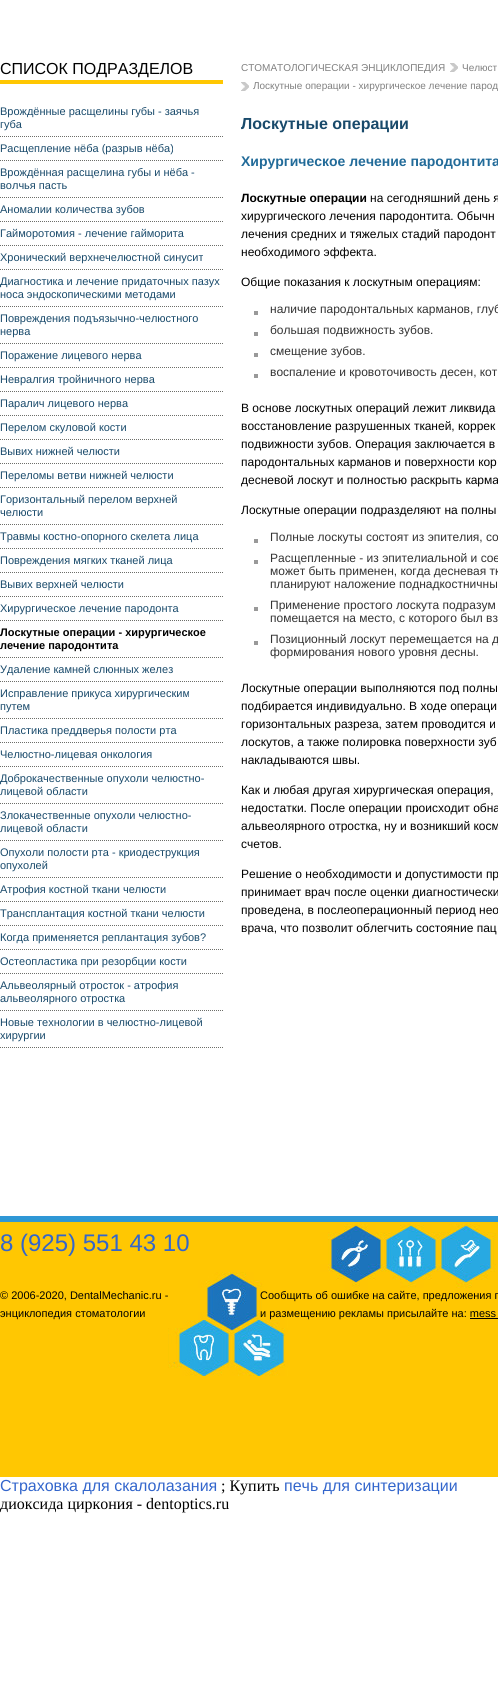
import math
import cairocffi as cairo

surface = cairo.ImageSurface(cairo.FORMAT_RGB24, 498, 1697)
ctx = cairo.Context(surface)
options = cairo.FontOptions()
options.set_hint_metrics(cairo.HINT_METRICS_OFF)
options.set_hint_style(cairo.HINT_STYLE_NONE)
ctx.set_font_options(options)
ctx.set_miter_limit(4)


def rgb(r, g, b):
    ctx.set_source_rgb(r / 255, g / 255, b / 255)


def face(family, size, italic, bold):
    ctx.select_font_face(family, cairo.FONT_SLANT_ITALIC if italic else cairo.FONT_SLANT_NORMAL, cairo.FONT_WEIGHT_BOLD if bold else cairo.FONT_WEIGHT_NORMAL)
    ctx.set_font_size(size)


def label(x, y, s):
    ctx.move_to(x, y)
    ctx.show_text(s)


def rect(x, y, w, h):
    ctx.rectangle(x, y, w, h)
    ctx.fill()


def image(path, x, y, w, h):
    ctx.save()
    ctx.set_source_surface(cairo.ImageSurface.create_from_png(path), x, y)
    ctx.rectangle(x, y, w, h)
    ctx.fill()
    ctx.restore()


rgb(255, 255, 255)
ctx.paint()
rgb(255, 199, 2)
rect(0, 80, 223, 4)
face('Liberation Sans', 16, 0, 0)
rgb(0, 0, 0)
label(0, 74, 'СПИСОК ПОДРАЗДЕЛОВ')
ctx.new_path()
ctx.move_to(0, 136.5)
ctx.line_to(223, 136.5)
rgb(109, 110, 105)
ctx.set_line_width(1)
ctx.set_dash([1, 1])
ctx.stroke()
face('Liberation Sans', 11, 0, 0)
rgb(25, 74, 107)
label(0, 115, 'Врождённые расщелины губы - заячья')
label(0, 128, 'губа')
ctx.new_path()
ctx.move_to(0, 160.5)
ctx.line_to(223, 160.5)
rgb(109, 110, 105)
ctx.stroke()
rgb(25, 74, 107)
label(0, 152, 'Расщепление нёба (разрыв нёба)')
ctx.new_path()
ctx.move_to(0, 197.5)
ctx.line_to(223, 197.5)
rgb(109, 110, 105)
ctx.stroke()
rgb(25, 74, 107)
label(0, 176, 'Врождённая расщелина губы и нёба -')
label(0, 189, 'волчья пасть')
ctx.new_path()
ctx.move_to(0, 221.5)
ctx.line_to(223, 221.5)
rgb(109, 110, 105)
ctx.stroke()
rgb(25, 74, 107)
label(0, 213, 'Аномалии количества зубов')
ctx.new_path()
ctx.move_to(0, 245.5)
ctx.line_to(223, 245.5)
rgb(109, 110, 105)
ctx.stroke()
rgb(25, 74, 107)
label(0, 237, 'Гайморотомия - лечение гайморита')
ctx.new_path()
ctx.move_to(0, 269.5)
ctx.line_to(223, 269.5)
rgb(109, 110, 105)
ctx.stroke()
rgb(25, 74, 107)
label(0, 261, 'Хронический верхнечелюстной синусит')
ctx.new_path()
ctx.move_to(0, 306.5)
ctx.line_to(223, 306.5)
rgb(109, 110, 105)
ctx.stroke()
rgb(25, 74, 107)
label(0, 285, 'Диагностика и лечение придаточных пазух')
label(0, 298, 'носа эндоскопическими методами')
ctx.new_path()
ctx.move_to(0, 343.5)
ctx.line_to(223, 343.5)
rgb(109, 110, 105)
ctx.stroke()
rgb(25, 74, 107)
label(0, 322, 'Повреждения подъязычно-челюстного')
label(0, 335, 'нерва')
ctx.new_path()
ctx.move_to(0, 367.5)
ctx.line_to(223, 367.5)
rgb(109, 110, 105)
ctx.stroke()
rgb(25, 74, 107)
label(0, 359, 'Поражение лицевого нерва')
ctx.new_path()
ctx.move_to(0, 391.5)
ctx.line_to(223, 391.5)
rgb(109, 110, 105)
ctx.stroke()
rgb(25, 74, 107)
label(0, 383, 'Невралгия тройничного нерва')
ctx.new_path()
ctx.move_to(0, 415.5)
ctx.line_to(223, 415.5)
rgb(109, 110, 105)
ctx.stroke()
rgb(25, 74, 107)
label(0, 407, 'Паралич лицевого нерва')
ctx.new_path()
ctx.move_to(0, 439.5)
ctx.line_to(223, 439.5)
rgb(109, 110, 105)
ctx.stroke()
rgb(25, 74, 107)
label(0, 431, 'Перелом скуловой кости')
ctx.new_path()
ctx.move_to(0, 463.5)
ctx.line_to(223, 463.5)
rgb(109, 110, 105)
ctx.stroke()
rgb(25, 74, 107)
label(0, 455, 'Вывих нижней челюсти')
ctx.new_path()
ctx.move_to(0, 487.5)
ctx.line_to(223, 487.5)
rgb(109, 110, 105)
ctx.stroke()
rgb(25, 74, 107)
label(0, 479, 'Переломы ветви нижней челюсти')
ctx.new_path()
ctx.move_to(0, 524.5)
ctx.line_to(223, 524.5)
rgb(109, 110, 105)
ctx.stroke()
rgb(25, 74, 107)
label(0, 503, 'Горизонтальный перелом верхней')
label(0, 516, 'челюсти')
ctx.new_path()
ctx.move_to(0, 548.5)
ctx.line_to(223, 548.5)
rgb(109, 110, 105)
ctx.stroke()
rgb(25, 74, 107)
label(0, 540, 'Травмы костно-опорного скелета лица')
ctx.new_path()
ctx.move_to(0, 572.5)
ctx.line_to(223, 572.5)
rgb(109, 110, 105)
ctx.stroke()
rgb(25, 74, 107)
label(0, 564, 'Повреждения мягких тканей лица')
ctx.new_path()
ctx.move_to(0, 596.5)
ctx.line_to(223, 596.5)
rgb(109, 110, 105)
ctx.stroke()
rgb(25, 74, 107)
label(0, 588, 'Вывих верхней челюсти')
ctx.new_path()
ctx.move_to(0, 620.5)
ctx.line_to(223, 620.5)
rgb(109, 110, 105)
ctx.stroke()
rgb(25, 74, 107)
label(0, 612, 'Хирургическое лечение пародонта')
ctx.new_path()
ctx.move_to(0, 657.5)
ctx.line_to(223, 657.5)
rgb(109, 110, 105)
ctx.stroke()
face('Liberation Sans', 11, 0, 1)
rgb(0, 0, 0)
label(0, 636, 'Лоскутные операции - хирургическое')
label(0, 649, 'лечение пародонтита')
ctx.new_path()
ctx.move_to(0, 681.5)
ctx.line_to(223, 681.5)
rgb(109, 110, 105)
ctx.stroke()
face('Liberation Sans', 11, 0, 0)
rgb(25, 74, 107)
label(0, 673, 'Удаление камней слюнных желез')
ctx.new_path()
ctx.move_to(0, 718.5)
ctx.line_to(223, 718.5)
rgb(109, 110, 105)
ctx.stroke()
rgb(25, 74, 107)
label(0, 697, 'Исправление прикуса хирургическим')
label(0, 710, 'путем')
ctx.new_path()
ctx.move_to(0, 742.5)
ctx.line_to(223, 742.5)
rgb(109, 110, 105)
ctx.stroke()
rgb(25, 74, 107)
label(0, 734, 'Пластика преддверья полости рта')
ctx.new_path()
ctx.move_to(0, 766.5)
ctx.line_to(223, 766.5)
rgb(109, 110, 105)
ctx.stroke()
rgb(25, 74, 107)
label(0, 758, 'Челюстно-лицевая онкология')
ctx.new_path()
ctx.move_to(0, 803.5)
ctx.line_to(223, 803.5)
rgb(109, 110, 105)
ctx.stroke()
rgb(25, 74, 107)
label(0, 782, 'Доброкачественные опухоли челюстно-')
label(0, 795, 'лицевой области')
ctx.new_path()
ctx.move_to(0, 840.5)
ctx.line_to(223, 840.5)
rgb(109, 110, 105)
ctx.stroke()
rgb(25, 74, 107)
label(0, 819, 'Злокачественные опухоли челюстно-')
label(0, 832, 'лицевой области')
ctx.new_path()
ctx.move_to(0, 877.5)
ctx.line_to(223, 877.5)
rgb(109, 110, 105)
ctx.stroke()
rgb(25, 74, 107)
label(0, 856, 'Опухоли полости рта - криодеструкция')
label(0, 869, 'опухолей')
ctx.new_path()
ctx.move_to(0, 901.5)
ctx.line_to(223, 901.5)
rgb(109, 110, 105)
ctx.stroke()
rgb(25, 74, 107)
label(0, 893, 'Атрофия костной ткани челюсти')
ctx.new_path()
ctx.move_to(0, 925.5)
ctx.line_to(223, 925.5)
rgb(109, 110, 105)
ctx.stroke()
rgb(25, 74, 107)
label(0, 917, 'Трансплантация костной ткани челюсти')
ctx.new_path()
ctx.move_to(0, 949.5)
ctx.line_to(223, 949.5)
rgb(109, 110, 105)
ctx.stroke()
rgb(25, 74, 107)
label(0, 941, 'Когда применяется реплантация зубов?')
ctx.new_path()
ctx.move_to(0, 973.5)
ctx.line_to(223, 973.5)
rgb(109, 110, 105)
ctx.stroke()
rgb(25, 74, 107)
label(0, 965, 'Остеопластика при резорбции кости')
ctx.new_path()
ctx.move_to(0, 1010.5)
ctx.line_to(223, 1010.5)
rgb(109, 110, 105)
ctx.stroke()
rgb(25, 74, 107)
label(0, 989, 'Альвеолярный отросток - атрофия')
label(0, 1002, 'альвеолярного отростка')
ctx.new_path()
ctx.move_to(0, 1047.5)
ctx.line_to(223, 1047.5)
rgb(109, 110, 105)
ctx.stroke()
rgb(25, 74, 107)
label(0, 1026, 'Новые технологии в челюстно-лицевой')
label(0, 1039, 'хирургии')
face('Liberation Sans', 10, 0, 0)
rgb(128, 128, 128)
label(241, 71, 'СТОМАТОЛОГИЧЕСКАЯ ЭНЦИКЛОПЕДИЯ')
image('image0.png', 450, 63, 8, 9)
label(462, 71, 'Челюст')
image('image0.png', 241, 82, 8, 9)
label(253, 89, 'Лоскутные операции - хирургическое лечение парод')
face('Liberation Sans', 16, 0, 1)
rgb(25, 74, 107)
label(241, 129, 'Лоскутные операции')
face('Liberation Sans', 14, 0, 1)
rgb(34, 107, 153)
label(241, 166, 'Хирургическое лечение пародонтита')
face('Liberation Sans', 12, 0, 1)
rgb(0, 0, 0)
label(241, 202, 'Лоскутные операции')
face('Liberation Sans', 12, 0, 0)
label(370, 202, 'на сегодняшний день я')
label(241, 220, 'хирургического лечения пародонтита. Обычн')
label(241, 238, 'лечения средних и тяжелых стадий пародонт')
label(241, 256, 'необходимого эффекта.')
label(241, 286, 'Общие показания к лоскутным операциям:')
rgb(153, 153, 153)
rect(254, 311, 4, 4)
rgb(51, 51, 51)
label(270, 313, 'наличие пародонтальных карманов, глуб')
rgb(153, 153, 153)
rect(254, 332, 4, 4)
rgb(51, 51, 51)
label(270, 334, 'большая подвижность зубов.')
rgb(153, 153, 153)
rect(254, 353, 4, 4)
rgb(51, 51, 51)
label(270, 355, 'смещение зубов.')
rgb(153, 153, 153)
rect(254, 374, 4, 4)
rgb(51, 51, 51)
label(270, 376, 'воспаление и кровоточивость десен, кот')
rgb(0, 0, 0)
label(241, 412, 'В основе лоскутных операций лежит ликвида')
label(241, 430, 'восстановление разрушенных тканей, коррек')
label(241, 448, 'подвижности зубов. Операция заключается в')
label(241, 466, 'пародонтальных карманов и поверхности кор')
label(241, 484, 'десневой лоскут и полностью раскрыть карма')
label(241, 514, 'Лоскутные операции подразделяют на полны')
rgb(153, 153, 153)
rect(254, 539, 4, 4)
rgb(51, 51, 51)
label(270, 541, 'Полные лоскуты состоят из эпителия, со')
rgb(153, 153, 153)
rect(254, 560, 4, 4)
rgb(51, 51, 51)
label(270, 562, 'Расщепленные - из эпителиальной и сое')
label(270, 575, 'может быть применен, когда десневая тк')
label(270, 588, 'планируют наложение поднадкостничны')
rgb(153, 153, 153)
rect(254, 607, 4, 4)
rgb(51, 51, 51)
label(270, 609, 'Применение простого лоскута подразум')
label(270, 622, 'помещается на место, с которого был вз')
rgb(153, 153, 153)
rect(254, 641, 4, 4)
rgb(51, 51, 51)
label(270, 643, 'Позиционный лоскут перемещается на д')
label(270, 656, 'формирования нового уровня десны.')
rgb(0, 0, 0)
label(241, 692, 'Лоскутные операции выполняются под полны')
label(241, 710, 'подбирается индивидуально. В ходе операци')
label(241, 728, 'горизонтальных разреза, затем проводится и')
label(241, 746, 'лоскутов, а также полировка поверхности зуб')
label(241, 764, 'накладываются швы.')
label(241, 794, 'Как и любая другая хирургическая операция,')
label(241, 812, 'недостатки. После операции происходит обна')
label(241, 830, 'альвеолярного отростка, ну и возникший косм')
label(241, 848, 'счетов.')
label(241, 878, 'Решение о необходимости и допустимости пр')
label(241, 896, 'принимает врач после оценки диагностически')
label(241, 914, 'проведена, в послеоперационный период нео')
label(241, 932, 'врача, что позволит облегчить состояние пац')
image('image1.png', 0, 1216, 498, 261)
image('image2.png', 0, 1219, 498, 157)
face('Liberation Sans', 24, 0, 0)
rgb(51, 102, 204)
label(0, 1251, '8 (925) 551 43 10')
face('Liberation Sans', 11, 0, 0)
rgb(0, 0, 0)
label(0, 1299, '© 2006-2020, DentalMechanic.ru -')
label(0, 1317, 'энциклопедия стоматологии')
label(260, 1299, 'Сообщить об ошибке на сайте, предложения п')
label(260, 1317, 'и размещению рекламы присылайте на: mess')
rect(470, 1318, 28, 1)
face('Liberation Sans', 16, 0, 0)
rgb(51, 102, 204)
label(0, 1491, 'Страховка для скалолазания')
face('Liberation Serif', 16, 0, 0)
rgb(0, 0, 0)
label(221, 1491, '; Купить')
face('Liberation Sans', 16, 0, 0)
rgb(51, 102, 204)
label(284, 1491, 'печь для синтеризации')
face('Liberation Serif', 16, 0, 0)
rgb(0, 0, 0)
label(0, 1509, 'диоксида циркония - dentoptics.ru')
surface.write_to_png('render.png')
